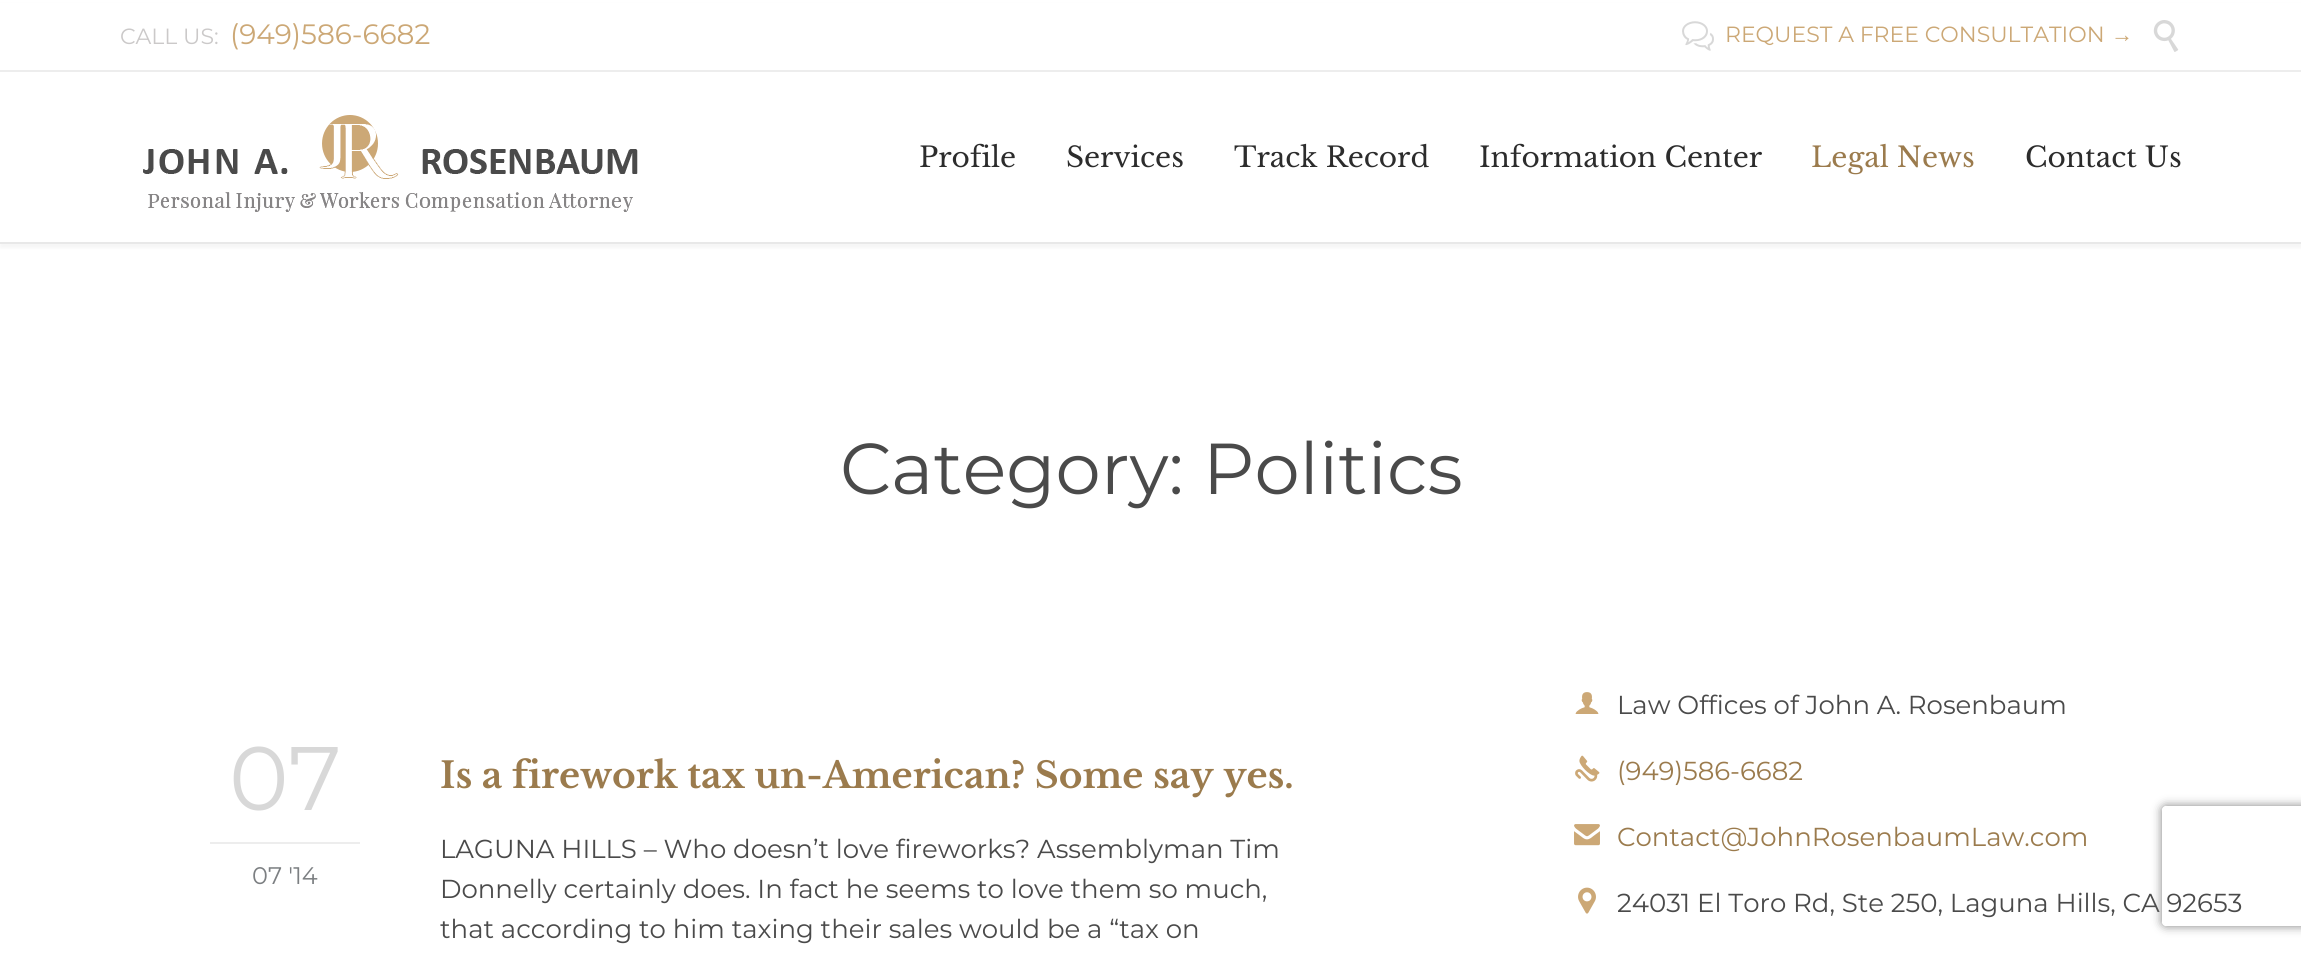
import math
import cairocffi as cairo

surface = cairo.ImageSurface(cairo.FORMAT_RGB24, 2301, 954)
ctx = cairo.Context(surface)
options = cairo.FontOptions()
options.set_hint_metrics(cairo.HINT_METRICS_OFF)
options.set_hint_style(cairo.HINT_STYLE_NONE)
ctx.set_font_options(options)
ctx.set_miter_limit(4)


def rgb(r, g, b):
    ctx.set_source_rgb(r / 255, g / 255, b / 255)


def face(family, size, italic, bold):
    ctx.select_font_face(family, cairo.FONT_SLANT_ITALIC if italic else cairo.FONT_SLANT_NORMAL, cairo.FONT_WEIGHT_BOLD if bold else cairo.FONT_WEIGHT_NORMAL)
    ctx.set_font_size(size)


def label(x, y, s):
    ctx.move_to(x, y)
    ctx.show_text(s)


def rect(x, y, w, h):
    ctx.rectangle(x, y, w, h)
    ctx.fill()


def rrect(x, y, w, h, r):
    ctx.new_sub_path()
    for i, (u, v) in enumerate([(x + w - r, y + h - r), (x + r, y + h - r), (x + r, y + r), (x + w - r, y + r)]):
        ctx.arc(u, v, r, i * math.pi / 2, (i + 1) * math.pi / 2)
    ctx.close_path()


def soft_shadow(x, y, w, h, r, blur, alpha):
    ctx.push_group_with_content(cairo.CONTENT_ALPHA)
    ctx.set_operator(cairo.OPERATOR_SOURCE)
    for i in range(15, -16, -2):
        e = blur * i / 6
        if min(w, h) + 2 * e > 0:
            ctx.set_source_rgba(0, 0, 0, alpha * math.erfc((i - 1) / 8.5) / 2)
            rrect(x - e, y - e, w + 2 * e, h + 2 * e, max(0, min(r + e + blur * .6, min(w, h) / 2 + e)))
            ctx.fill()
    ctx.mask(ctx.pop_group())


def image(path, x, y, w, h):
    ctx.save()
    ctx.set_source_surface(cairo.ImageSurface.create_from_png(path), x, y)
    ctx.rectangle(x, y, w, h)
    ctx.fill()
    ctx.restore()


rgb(255, 255, 255)
ctx.paint()
rgb(0, 0, 0)
soft_shadow(0, 4, 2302, 244, 0, 2, 0.04)
rgb(255, 255, 255)
rect(0, 3, 2301, 239)
rgb(232, 232, 232)
rect(0, 242, 2301, 2)
rgb(237, 237, 237)
rect(0, 70, 2301, 2)
face('Montserrat', 22, 0, 0)
rgb(203, 201, 201)
label(120, 44, 'CALL US:')
face('Montserrat', 28, 0, 0)
rgb(204, 168, 118)
label(230, 44, '(949)586-6682')
image('image0.png', 1682, 21, 32, 30)
face('Montserrat', 22, 0, 0)
label(1725, 42, 'REQUEST A FREE CONSULTATION')
face('Liberation Serif', 22, 0, 0)
label(2111, 42, '→')
image('image1.png', 2153, 20, 26, 32)
image('image2.png', 143, 115, 495, 97)
face('Libre Baskerville', 28, 0, 0)
rgb(44, 44, 44)
label(919, 167, 'Profile')
label(1066, 167, 'Services')
label(1234, 167, 'Track Record')
label(1479, 167, 'Information Center')
rgb(155, 123, 77)
label(1811, 167, 'Legal News')
rgb(44, 44, 44)
label(2025, 167, 'Contact Us')
face('Montserrat', 72, 0, 0)
rgb(74, 74, 74)
label(840, 494, 'Category: Politics')
rgb(237, 237, 237)
rect(210, 842, 150, 2)
face('Montserrat', 90, 0, 0)
rgb(216, 216, 216)
label(229, 810, '07')
face('Montserrat', 24, 0, 0)
rgb(124, 127, 130)
label(252, 884, '07 \'14')
face('Libre Baskerville', 36, 0, 1)
rgb(155, 123, 77)
label(440, 788, 'Is a firework tax un-American? Some say yes.')
face('Montserrat', 26, 0, 0)
rgb(74, 74, 74)
label(440, 858, 'LAGUNA HILLS – Who doesn’t love fireworks? Assemblyman Tim')
label(440, 898, 'Donnelly certainly does. In fact he seems to love them so much,')
label(440, 938, 'that according to him taxing their sales would be a “tax on')
image('image3.png', 1575, 692, 24, 22)
label(1617, 714, 'Law Offices of John A. Rosenbaum')
image('image4.png', 1575, 755, 25, 27)
rgb(155, 123, 77)
label(1617, 780, '(949)586-6682')
image('image5.png', 1574, 824, 26, 22)
label(1617, 846, 'Contact@JohnRosenbaumLaw.com')
image('image6.png', 1578, 887, 18, 27)
rgb(74, 74, 74)
label(1617, 912, '24031 El Toro Rd, Ste 250, Laguna Hills, CA 92653')
ctx.save()
ctx.set_fill_rule(cairo.FILL_RULE_EVEN_ODD)
ctx.new_path()
ctx.move_to(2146, 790)
ctx.line_to(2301, 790)
ctx.line_to(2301, 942)
ctx.line_to(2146, 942)
ctx.close_path()
ctx.move_to(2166, 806)
ctx.line_to(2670, 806)
ctx.curve_to(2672, 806, 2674, 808, 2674, 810)
ctx.line_to(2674, 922)
ctx.curve_to(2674, 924, 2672, 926, 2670, 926)
ctx.line_to(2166, 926)
ctx.curve_to(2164, 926, 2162, 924, 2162, 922)
ctx.line_to(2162, 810)
ctx.curve_to(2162, 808, 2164, 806, 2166, 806)
ctx.close_path()
ctx.clip()
rgb(128, 128, 128)
soft_shadow(2162, 806, 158, 120, 4, 5, 1)
ctx.restore()
surface.write_to_png('render.png')
